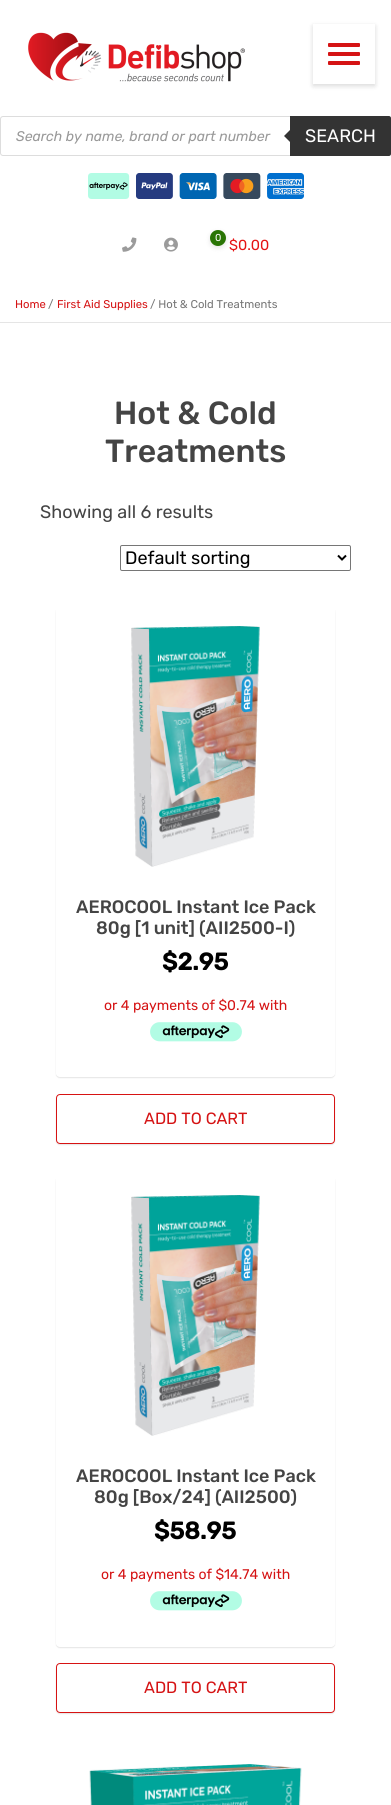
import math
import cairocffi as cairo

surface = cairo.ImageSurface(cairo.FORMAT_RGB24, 391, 1805)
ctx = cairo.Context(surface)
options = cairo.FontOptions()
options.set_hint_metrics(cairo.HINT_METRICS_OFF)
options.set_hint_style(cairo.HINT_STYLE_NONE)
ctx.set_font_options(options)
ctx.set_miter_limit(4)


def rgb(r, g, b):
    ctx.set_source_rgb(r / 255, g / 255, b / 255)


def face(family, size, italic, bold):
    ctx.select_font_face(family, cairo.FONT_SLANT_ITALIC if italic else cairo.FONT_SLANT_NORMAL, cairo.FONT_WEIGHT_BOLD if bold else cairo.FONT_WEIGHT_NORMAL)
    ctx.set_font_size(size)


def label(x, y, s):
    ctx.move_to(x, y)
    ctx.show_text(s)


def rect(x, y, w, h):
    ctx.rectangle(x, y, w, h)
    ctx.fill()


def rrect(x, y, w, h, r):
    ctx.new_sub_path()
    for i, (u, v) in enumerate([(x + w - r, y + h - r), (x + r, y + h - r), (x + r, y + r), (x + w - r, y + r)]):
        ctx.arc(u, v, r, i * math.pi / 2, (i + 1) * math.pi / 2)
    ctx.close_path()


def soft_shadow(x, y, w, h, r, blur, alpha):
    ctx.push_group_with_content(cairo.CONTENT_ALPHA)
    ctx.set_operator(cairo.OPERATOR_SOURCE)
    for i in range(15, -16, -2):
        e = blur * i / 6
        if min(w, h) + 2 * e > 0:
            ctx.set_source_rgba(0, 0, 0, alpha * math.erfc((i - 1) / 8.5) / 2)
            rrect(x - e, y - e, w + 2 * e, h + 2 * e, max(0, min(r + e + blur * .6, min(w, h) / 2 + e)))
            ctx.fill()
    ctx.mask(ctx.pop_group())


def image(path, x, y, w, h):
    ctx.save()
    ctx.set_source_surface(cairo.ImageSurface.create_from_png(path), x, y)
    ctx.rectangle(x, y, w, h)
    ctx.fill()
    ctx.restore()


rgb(255, 255, 255)
ctx.paint()
ctx.save()
ctx.set_fill_rule(cairo.FILL_RULE_EVEN_ODD)
ctx.new_path()
ctx.move_to(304, 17)
ctx.line_to(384, 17)
ctx.line_to(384, 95)
ctx.line_to(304, 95)
ctx.close_path()
ctx.move_to(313, 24)
ctx.line_to(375, 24)
ctx.line_to(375, 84)
ctx.line_to(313, 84)
ctx.close_path()
ctx.clip()
rgb(0, 0, 0)
soft_shadow(313, 26, 62, 60, 0, 2.5, 0.15)
ctx.restore()
rgb(213, 19, 20)
rrect(328, 43, 32, 4, 1)
ctx.fill()
rrect(328, 52, 32, 4, 1)
ctx.fill()
rrect(328, 61, 32, 4, 1)
ctx.fill()
image('image0.png', 28, 32, 217, 50)
rrect(0.5, 116.5, 390, 39, 2.5)
rgb(221, 221, 221)
ctx.set_line_width(1)
ctx.stroke()
face('Rubik', 14, 1, 0)
rgb(153, 153, 153)
label(16, 141, 'Search by name, brand or part number')
rgb(51, 51, 51)
ctx.new_path()
ctx.move_to(290, 116)
ctx.line_to(389, 116)
ctx.curve_to(390, 116, 391, 117, 391, 118)
ctx.line_to(391, 154)
ctx.curve_to(391, 155, 390, 156, 389, 156)
ctx.line_to(290, 156)
ctx.close_path()
ctx.fill()
ctx.new_path()
ctx.move_to(292, 128)
ctx.line_to(292, 144)
ctx.line_to(284, 136)
ctx.close_path()
ctx.fill()
face('Rubik Light', 18, 0, 0)
rgb(255, 255, 255)
label(305, 142, 'SEARCH')
image('image1.png', 88, 173, 216, 26)
image('image2.png', 122, 237, 15, 15)
image('image3.png', 164, 237, 14, 15)
rgb(0, 0, 0)
soft_shadow(210, 232, 16, 16, 8, 2.5, 0.1)
rgb(42, 117, 5)
ctx.arc(218, 238, 8, 0, 2 * math.pi)
ctx.fill()
face('Rubik Light', 10, 0, 0)
rgb(255, 255, 255)
label(215, 241, '0')
face('Rubik Light', 14.5, 0, 0)
rgb(229, 20, 21)
label(229, 250, '$0.00')
rgb(229, 229, 229)
rect(0, 322, 391, 1)
face('Rubik Light', 11.25, 0, 0)
rgb(213, 19, 20)
label(15, 308, 'Home')
rgb(118, 118, 118)
label(48, 308, '/')
rgb(213, 19, 20)
label(57, 308, 'First Aid Supplies')
rgb(118, 118, 118)
label(150, 308, '/ Hot & Cold Treatments')
face('Rubik Medium', 32, 0, 0)
rgb(68, 68, 68)
label(114, 424, 'Hot & Cold')
label(105, 462, 'Treatments')
face('Rubik Light', 18, 0, 0)
label(40, 518, 'Showing all 6 results')
rrect(120.5, 545.5, 230, 25, 1.5)
rgb(118, 118, 118)
ctx.stroke()
ctx.new_path()
ctx.move_to(338, 555.5)
ctx.line_to(342, 559.5)
ctx.line_to(346, 555.5)
rgb(0, 0, 0)
ctx.set_line_width(2)
ctx.stroke()
label(125, 564, 'Default sorting')
ctx.save()
ctx.set_fill_rule(cairo.FILL_RULE_EVEN_ODD)
ctx.new_path()
ctx.move_to(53, 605)
ctx.line_to(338, 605)
ctx.line_to(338, 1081)
ctx.line_to(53, 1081)
ctx.close_path()
ctx.move_to(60, 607)
ctx.line_to(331, 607)
ctx.curve_to(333, 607, 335, 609, 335, 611)
ctx.line_to(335, 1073)
ctx.curve_to(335, 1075, 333, 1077, 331, 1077)
ctx.line_to(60, 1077)
ctx.curve_to(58, 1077, 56, 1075, 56, 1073)
ctx.line_to(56, 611)
ctx.curve_to(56, 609, 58, 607, 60, 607)
ctx.close_path()
ctx.clip()
rgb(0, 0, 0)
soft_shadow(56, 608, 279, 470, 4, 0.5, 0.1)
ctx.restore()
image('image4.png', 131, 626, 129, 241)
face('Rubik Medium', 18, 0, 0)
rgb(68, 68, 68)
label(76, 913, 'AEROCOOL Instant Ice Pack')
label(96, 934, '80g [1 unit] (AII2500-I)')
face('Rubik', 24, 0, 1)
rgb(0, 0, 0)
label(162, 970, '$2.95')
face('Rubik Light', 14, 0, 0)
rgb(213, 19, 20)
label(104, 1010, 'or 4 payments of $0.74 with')
image('image5.png', 150, 1022, 92, 20)
ctx.save()
ctx.set_fill_rule(cairo.FILL_RULE_EVEN_ODD)
ctx.new_path()
ctx.move_to(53, 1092)
ctx.line_to(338, 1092)
ctx.line_to(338, 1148)
ctx.line_to(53, 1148)
ctx.close_path()
ctx.move_to(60, 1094)
ctx.line_to(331, 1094)
ctx.curve_to(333, 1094, 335, 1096, 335, 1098)
ctx.line_to(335, 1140)
ctx.curve_to(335, 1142, 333, 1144, 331, 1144)
ctx.line_to(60, 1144)
ctx.curve_to(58, 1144, 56, 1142, 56, 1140)
ctx.line_to(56, 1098)
ctx.curve_to(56, 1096, 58, 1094, 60, 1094)
ctx.close_path()
ctx.clip()
rgb(0, 0, 0)
soft_shadow(56, 1095, 279, 50, 4, 0.5, 0.1)
ctx.restore()
rrect(56.5, 1094.5, 278, 49, 3.5)
rgb(215, 19, 19)
ctx.set_line_width(1)
ctx.stroke()
face('Rubik Light', 16.25, 0, 0)
rgb(213, 19, 20)
label(144, 1124, 'ADD TO CART')
ctx.save()
ctx.set_fill_rule(cairo.FILL_RULE_EVEN_ODD)
ctx.new_path()
ctx.move_to(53, 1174)
ctx.line_to(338, 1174)
ctx.line_to(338, 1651)
ctx.line_to(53, 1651)
ctx.close_path()
ctx.move_to(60, 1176)
ctx.line_to(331, 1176)
ctx.curve_to(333, 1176, 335, 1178, 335, 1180)
ctx.line_to(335, 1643)
ctx.curve_to(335, 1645, 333, 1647, 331, 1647)
ctx.line_to(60, 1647)
ctx.curve_to(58, 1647, 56, 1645, 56, 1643)
ctx.line_to(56, 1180)
ctx.curve_to(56, 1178, 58, 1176, 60, 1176)
ctx.close_path()
ctx.clip()
rgb(0, 0, 0)
soft_shadow(56, 1177, 279, 471, 4, 0.5, 0.1)
ctx.restore()
image('image4.png', 131, 1195, 129, 241)
face('Rubik Medium', 18, 0, 0)
rgb(68, 68, 68)
label(76, 1482, 'AEROCOOL Instant Ice Pack')
label(94, 1503, '80g [Box/24] (AII2500)')
face('Rubik', 24, 0, 1)
rgb(0, 0, 0)
label(154, 1539, '$58.95')
face('Rubik Light', 14, 0, 0)
rgb(213, 19, 20)
label(101, 1579, 'or 4 payments of $14.74 with')
image('image5.png', 150, 1591, 92, 20)
ctx.save()
ctx.set_fill_rule(cairo.FILL_RULE_EVEN_ODD)
ctx.new_path()
ctx.move_to(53, 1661)
ctx.line_to(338, 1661)
ctx.line_to(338, 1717)
ctx.line_to(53, 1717)
ctx.close_path()
ctx.move_to(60, 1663)
ctx.line_to(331, 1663)
ctx.curve_to(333, 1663, 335, 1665, 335, 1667)
ctx.line_to(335, 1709)
ctx.curve_to(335, 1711, 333, 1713, 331, 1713)
ctx.line_to(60, 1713)
ctx.curve_to(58, 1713, 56, 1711, 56, 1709)
ctx.line_to(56, 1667)
ctx.curve_to(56, 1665, 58, 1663, 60, 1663)
ctx.close_path()
ctx.clip()
rgb(0, 0, 0)
soft_shadow(56, 1664, 279, 50, 4, 0.5, 0.1)
ctx.restore()
rrect(56.5, 1663.5, 278, 49, 3.5)
rgb(215, 19, 19)
ctx.stroke()
face('Rubik Light', 16.25, 0, 0)
rgb(213, 19, 20)
label(144, 1693, 'ADD TO CART')
image('image6.png', 89, 1764, 213, 41)
surface.write_to_png('render.png')
